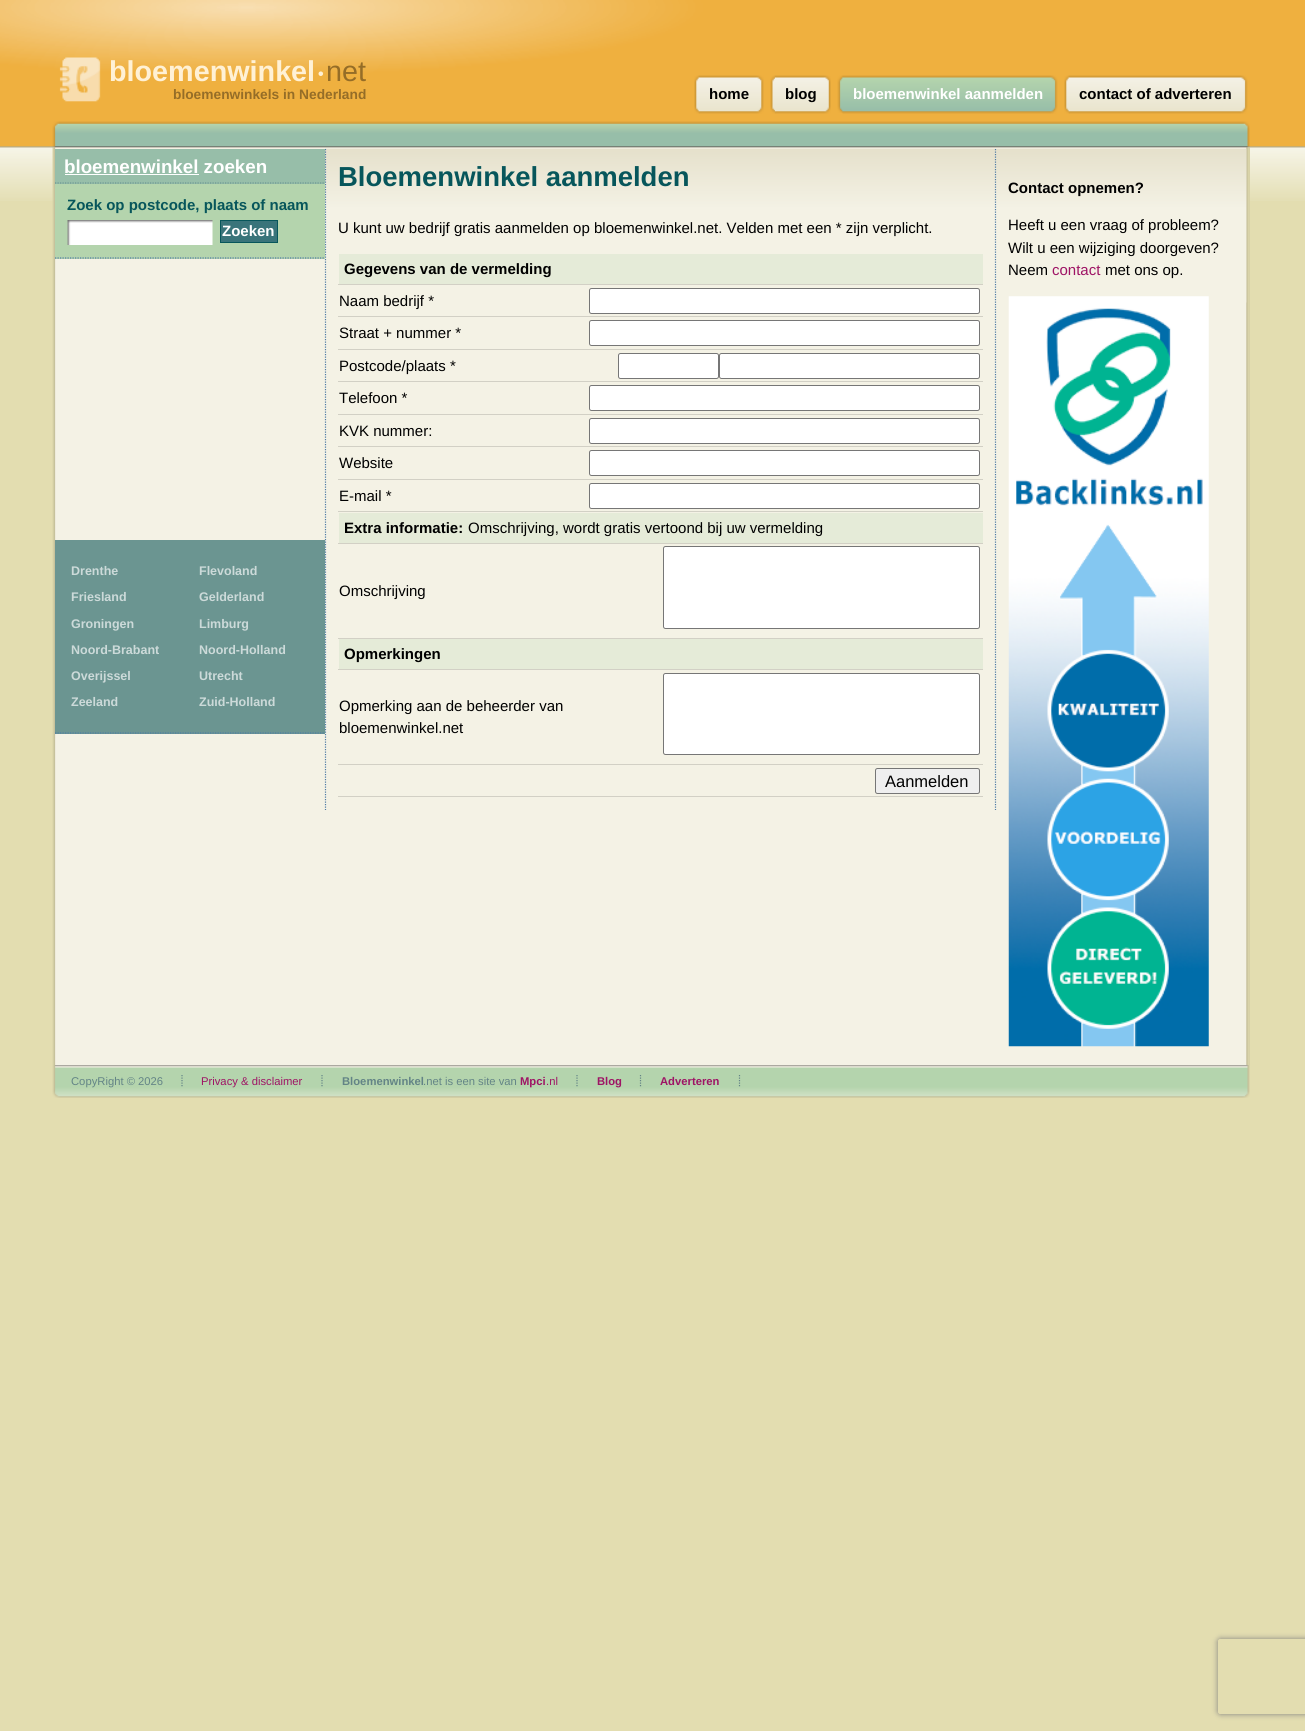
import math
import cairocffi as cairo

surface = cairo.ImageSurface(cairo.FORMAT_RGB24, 1305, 1731)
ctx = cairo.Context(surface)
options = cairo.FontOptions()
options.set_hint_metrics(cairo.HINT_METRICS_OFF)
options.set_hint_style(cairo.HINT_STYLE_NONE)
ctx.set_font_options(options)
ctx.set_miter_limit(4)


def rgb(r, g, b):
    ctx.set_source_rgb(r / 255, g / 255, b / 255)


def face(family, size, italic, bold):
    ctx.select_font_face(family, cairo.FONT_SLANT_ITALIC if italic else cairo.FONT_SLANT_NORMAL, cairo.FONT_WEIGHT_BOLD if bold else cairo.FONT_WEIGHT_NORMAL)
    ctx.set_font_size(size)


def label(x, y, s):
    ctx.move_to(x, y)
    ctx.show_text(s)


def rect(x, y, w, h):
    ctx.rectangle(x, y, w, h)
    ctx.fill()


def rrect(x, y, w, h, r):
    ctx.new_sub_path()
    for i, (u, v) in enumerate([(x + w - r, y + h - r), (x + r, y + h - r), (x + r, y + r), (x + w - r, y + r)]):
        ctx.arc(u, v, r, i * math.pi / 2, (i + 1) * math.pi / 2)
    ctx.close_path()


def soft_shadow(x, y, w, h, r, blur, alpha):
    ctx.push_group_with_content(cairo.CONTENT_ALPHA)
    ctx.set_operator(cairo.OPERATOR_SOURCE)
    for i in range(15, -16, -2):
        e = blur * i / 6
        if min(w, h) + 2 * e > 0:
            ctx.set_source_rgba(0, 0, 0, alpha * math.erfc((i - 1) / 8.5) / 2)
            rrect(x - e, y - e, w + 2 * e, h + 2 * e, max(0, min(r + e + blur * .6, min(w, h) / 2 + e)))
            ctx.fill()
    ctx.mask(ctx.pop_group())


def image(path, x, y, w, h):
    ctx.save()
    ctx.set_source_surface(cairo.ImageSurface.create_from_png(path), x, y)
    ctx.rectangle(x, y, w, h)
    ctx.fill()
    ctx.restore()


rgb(227, 221, 176)
ctx.paint()
image('image0.png', 0, 0, 1305, 201)
image('image1.png', 59, 57, 42, 45)
face('Liberation Sans', 28.75, 0, 1)
rgb(255, 241, 213)
label(109, 81, 'bloemenwinkel')
face('Liberation Sans', 16, 0, 1)
label(318, 79, '•')
face('Liberation Sans', 28.75, 0, 0)
rgb(149, 109, 39)
label(326, 81, 'net')
face('Liberation Sans', 13.75, 0, 1)
label(173, 99, 'bloemenwinkels in Nederland')
image('image2.png', 52, 121, 1198, 27)
image('image3.png', 694, 75, 6, 39)
image('image4.png', 698, 75, 66, 39)
face('Liberation Sans', 15, 0, 1)
rgb(0, 0, 0)
label(709, 99, 'home')
image('image5.png', 770, 75, 7, 39)
image('image6.png', 775, 75, 56, 39)
label(785, 99, 'blog')
image('image7.png', 837, 75, 6, 38)
image('image8.png', 842, 75, 216, 39)
rgb(255, 255, 255)
label(853, 99, 'bloemenwinkel aanmelden')
image('image3.png', 1064, 75, 6, 39)
image('image9.png', 1068, 75, 180, 39)
rgb(0, 0, 0)
label(1079, 99, 'contact of adverteren')
image('image10.png', 52, 147, 1198, 918)
image('image12.png', 325, 148, 922, 155)
ctx.new_path()
ctx.move_to(325.5, 149)
ctx.line_to(325.5, 810)
rgb(78, 123, 165)
ctx.set_line_width(1.2)
ctx.set_dash([1.25, 1.25])
ctx.stroke()
rgb(151, 190, 169)
rect(55, 149, 270, 35)
ctx.new_path()
ctx.move_to(55, 183)
ctx.line_to(325, 183)
rgb(107, 149, 145)
ctx.stroke()
face('Liberation Sans', 18.75, 0, 1)
rgb(255, 255, 255)
label(64, 173, 'bloemenwinkel zoeken')
rect(65, 174, 134, 1)
rgb(180, 212, 173)
rect(55, 184, 270, 75)
ctx.new_path()
ctx.move_to(55, 258)
ctx.line_to(325, 258)
rgb(78, 123, 165)
ctx.stroke()
face('Liberation Sans', 15, 0, 1)
rgb(7, 86, 91)
label(67, 210, 'Zoek op postcode, plaats of naam')
image('image11.png', 67, 220, 146, 25)
rgb(57, 116, 122)
ctx.rectangle(220.5, 220.5, 57, 22)
ctx.fill_preserve()
rgb(7, 86, 91)
ctx.set_line_width(1)
ctx.set_dash([])
ctx.stroke()
rgb(255, 255, 255)
label(222, 236, 'Zoeken')
rgb(107, 149, 145)
rect(55, 540, 270, 194)
ctx.new_path()
ctx.move_to(55, 733)
ctx.line_to(325, 733)
rgb(78, 123, 165)
ctx.set_line_width(1.2)
ctx.set_dash([1.25, 1.25])
ctx.stroke()
face('Liberation Sans', 12.5, 0, 1)
rgb(204, 218, 217)
label(71, 575, 'Drenthe')
label(199, 575, 'Flevoland')
label(71, 601, 'Friesland')
label(199, 601, 'Gelderland')
label(71, 628, 'Groningen')
label(199, 628, 'Limburg')
label(71, 654, 'Noord-Brabant')
label(199, 654, 'Noord-Holland')
label(71, 680, 'Overijssel')
label(199, 680, 'Utrecht')
label(71, 706, 'Zeeland')
label(199, 706, 'Zuid-Holland')
ctx.new_path()
ctx.move_to(995.5, 149)
ctx.line_to(995.5, 810)
rgb(78, 123, 165)
ctx.stroke()
face('Liberation Sans', 27.5, 0, 1)
rgb(7, 86, 91)
label(338, 186, 'Bloemenwinkel aanmelden')
face('Liberation Sans', 15, 0, 0)
rgb(0, 0, 0)
label(338, 233, 'U kunt uw bedrijf gratis aanmelden op bloemenwinkel.net. Velden met een * zijn verplicht.')
rgb(229, 235, 216)
rect(339, 254, 644, 30)
rgb(210, 208, 197)
rect(338, 284, 645, 1)
face('Liberation Sans', 15, 0, 1)
rgb(0, 0, 0)
label(344, 274, 'Gegevens van de vermelding')
rgb(210, 208, 197)
rect(338, 316, 645, 1)
rgb(255, 255, 255)
rrect(589.5, 288.5, 390, 25, 2)
ctx.fill_preserve()
rgb(118, 118, 118)
ctx.set_line_width(1)
ctx.set_dash([])
ctx.stroke()
face('Liberation Sans', 15, 0, 0)
rgb(0, 0, 0)
label(339, 306, 'Naam bedrijf *')
rgb(210, 208, 197)
rect(338, 349, 645, 1)
rgb(255, 255, 255)
rrect(589.5, 320.5, 390, 25, 2)
ctx.fill_preserve()
rgb(118, 118, 118)
ctx.stroke()
rgb(0, 0, 0)
label(339, 338, 'Straat + nummer *')
rgb(210, 208, 197)
rect(338, 381, 645, 1)
rgb(255, 255, 255)
rrect(618.5, 353.5, 100, 25, 2)
ctx.fill_preserve()
rgb(118, 118, 118)
ctx.stroke()
rgb(255, 255, 255)
rrect(719.5, 353.5, 260, 25, 2)
ctx.fill_preserve()
rgb(118, 118, 118)
ctx.stroke()
rgb(0, 0, 0)
label(339, 371, 'Postcode/plaats *')
rgb(210, 208, 197)
rect(338, 414, 645, 1)
rgb(255, 255, 255)
rrect(589.5, 385.5, 390, 25, 2)
ctx.fill_preserve()
rgb(118, 118, 118)
ctx.stroke()
rgb(0, 0, 0)
label(339, 403, 'Telefoon *')
rgb(210, 208, 197)
rect(338, 446, 645, 1)
rgb(255, 255, 255)
rrect(589.5, 418.5, 390, 25, 2)
ctx.fill_preserve()
rgb(118, 118, 118)
ctx.stroke()
rgb(0, 0, 0)
label(339, 436, 'KVK nummer:')
rgb(210, 208, 197)
rect(338, 479, 645, 1)
rgb(255, 255, 255)
rrect(589.5, 450.5, 390, 25, 2)
ctx.fill_preserve()
rgb(118, 118, 118)
ctx.stroke()
rgb(0, 0, 0)
label(339, 468, 'Website')
rgb(210, 208, 197)
rect(338, 511, 645, 1)
rgb(255, 255, 255)
rrect(589.5, 483.5, 390, 25, 2)
ctx.fill_preserve()
rgb(118, 118, 118)
ctx.stroke()
rgb(0, 0, 0)
label(339, 501, 'E-mail *')
rgb(229, 235, 216)
rect(339, 513, 644, 30)
rgb(210, 208, 197)
rect(338, 543, 645, 1)
face('Liberation Sans', 15, 0, 1)
rgb(0, 0, 0)
label(344, 533, 'Extra informatie:')
face('Liberation Sans', 15, 0, 0)
label(468, 533, 'Omschrijving, wordt gratis vertoond bij uw vermelding')
rgb(210, 208, 197)
rect(338, 638, 645, 1)
rgb(255, 255, 255)
rrect(663.5, 546.5, 316, 82, 2)
ctx.fill_preserve()
rgb(118, 118, 118)
ctx.stroke()
rgb(0, 0, 0)
label(339, 596, 'Omschrijving')
rgb(229, 235, 216)
rect(339, 639, 644, 30)
rgb(210, 208, 197)
rect(338, 669, 645, 1)
face('Liberation Sans', 15, 0, 1)
rgb(0, 0, 0)
label(344, 659, 'Opmerkingen')
rgb(210, 208, 197)
rect(338, 764, 645, 1)
rgb(255, 255, 255)
rrect(663.5, 673.5, 316, 81, 2)
ctx.fill_preserve()
rgb(118, 118, 118)
ctx.stroke()
face('Liberation Sans', 15, 0, 0)
rgb(0, 0, 0)
label(339, 711, 'Opmerking aan de beheerder van')
label(339, 733, 'bloemenwinkel.net')
rgb(210, 208, 197)
rect(338, 796, 645, 1)
rgb(239, 239, 239)
rrect(875.5, 768.5, 104, 25, 2)
ctx.fill_preserve()
rgb(118, 118, 118)
ctx.stroke()
face('Liberation Sans', 16.5, 0, 0)
rgb(0, 0, 0)
label(885, 787, 'Aanmelden')
ctx.save()
ctx.set_fill_rule(cairo.FILL_RULE_EVEN_ODD)
ctx.new_path()
ctx.move_to(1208, 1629)
ctx.line_to(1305, 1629)
ctx.line_to(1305, 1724)
ctx.line_to(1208, 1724)
ctx.close_path()
ctx.move_to(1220.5, 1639)
ctx.line_to(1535.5, 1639)
ctx.curve_to(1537, 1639, 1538, 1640, 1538, 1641.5)
ctx.line_to(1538, 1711.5)
ctx.curve_to(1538, 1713, 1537, 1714, 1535.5, 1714)
ctx.line_to(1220.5, 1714)
ctx.curve_to(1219, 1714, 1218, 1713, 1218, 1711.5)
ctx.line_to(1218, 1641.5)
ctx.curve_to(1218, 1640, 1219, 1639, 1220.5, 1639)
ctx.close_path()
ctx.clip()
rgb(128, 128, 128)
soft_shadow(1218, 1639, 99, 75, 2.5, 3, 1)
ctx.restore()
face('Liberation Sans', 15, 0, 1)
label(1008, 193, 'Contact opnemen?')
face('Liberation Sans', 15, 0, 0)
label(1008, 230, 'Heeft u een vraag of probleem?')
label(1008, 253, 'Wilt u een wijziging doorgeven?')
label(1008, 275, 'Neem')
rgb(158, 20, 101)
label(1052, 275, 'contact')
rgb(0, 0, 0)
label(1105, 275, 'met ons op.')
image('image13.png', 1008, 296, 201, 751)
image('image14.png', 52, 1065, 1198, 33)
ctx.new_path()
ctx.move_to(182, 1075)
ctx.line_to(182, 1087.5)
rgb(99, 132, 134)
ctx.set_line_width(1.2)
ctx.set_dash([1.25, 1.25])
ctx.stroke()
face('Liberation Sans', 11.25, 0, 0)
label(71, 1085, 'CopyRight © 2026')
ctx.new_path()
ctx.move_to(322, 1075)
ctx.line_to(322, 1087.5)
ctx.stroke()
rgb(158, 20, 101)
label(201, 1085, 'Privacy & disclaimer')
ctx.new_path()
ctx.move_to(577, 1075)
ctx.line_to(577, 1087.5)
rgb(99, 132, 134)
ctx.stroke()
face('Liberation Sans', 11.25, 0, 1)
label(342, 1085, 'Bloemenwinkel')
face('Liberation Sans', 11.25, 0, 0)
label(423, 1085, '.net is een site van')
face('Liberation Sans', 11.25, 0, 1)
rgb(158, 20, 101)
label(520, 1085, 'Mpci')
face('Liberation Sans', 11.25, 0, 0)
label(546, 1085, '.nl')
ctx.new_path()
ctx.move_to(640.5, 1075)
ctx.line_to(640.5, 1087.5)
rgb(99, 132, 134)
ctx.stroke()
face('Liberation Sans', 11.25, 0, 1)
rgb(158, 20, 101)
label(597, 1085, 'Blog')
ctx.new_path()
ctx.move_to(739.5, 1075)
ctx.line_to(739.5, 1087.5)
rgb(99, 132, 134)
ctx.stroke()
rgb(158, 20, 101)
label(660, 1085, 'Adverteren')
surface.write_to_png('render.png')
